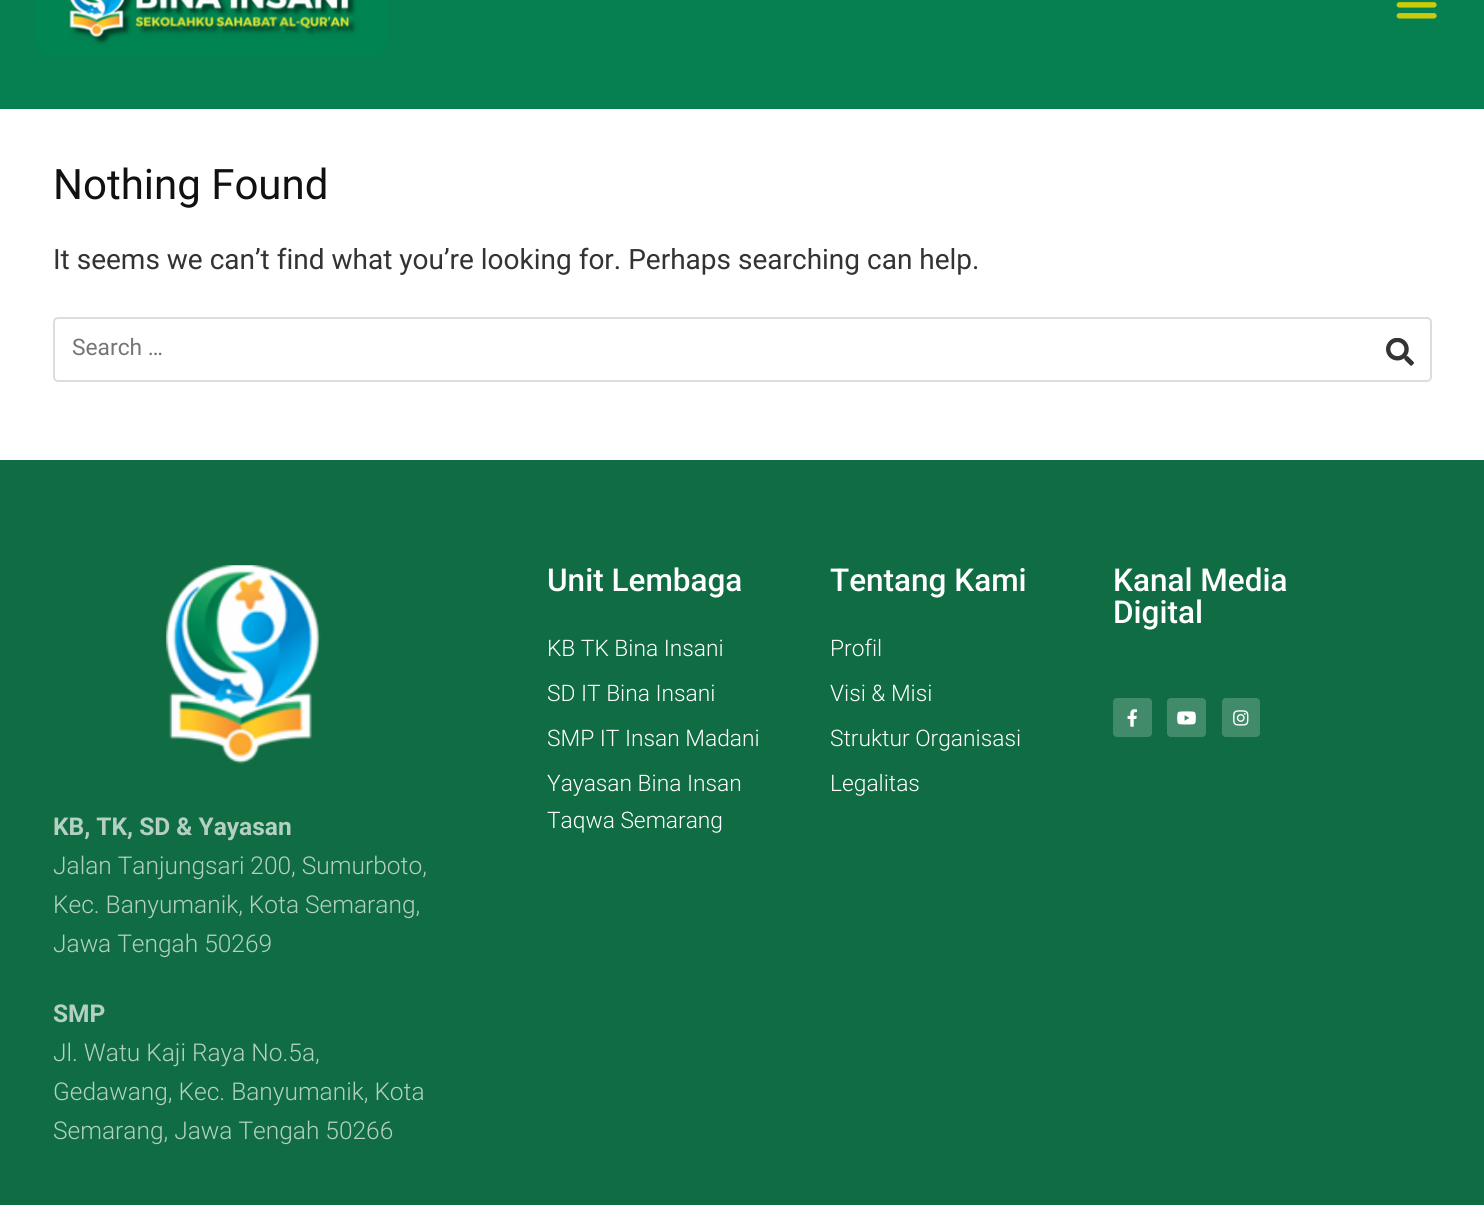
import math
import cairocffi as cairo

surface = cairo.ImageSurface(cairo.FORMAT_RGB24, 1484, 1205)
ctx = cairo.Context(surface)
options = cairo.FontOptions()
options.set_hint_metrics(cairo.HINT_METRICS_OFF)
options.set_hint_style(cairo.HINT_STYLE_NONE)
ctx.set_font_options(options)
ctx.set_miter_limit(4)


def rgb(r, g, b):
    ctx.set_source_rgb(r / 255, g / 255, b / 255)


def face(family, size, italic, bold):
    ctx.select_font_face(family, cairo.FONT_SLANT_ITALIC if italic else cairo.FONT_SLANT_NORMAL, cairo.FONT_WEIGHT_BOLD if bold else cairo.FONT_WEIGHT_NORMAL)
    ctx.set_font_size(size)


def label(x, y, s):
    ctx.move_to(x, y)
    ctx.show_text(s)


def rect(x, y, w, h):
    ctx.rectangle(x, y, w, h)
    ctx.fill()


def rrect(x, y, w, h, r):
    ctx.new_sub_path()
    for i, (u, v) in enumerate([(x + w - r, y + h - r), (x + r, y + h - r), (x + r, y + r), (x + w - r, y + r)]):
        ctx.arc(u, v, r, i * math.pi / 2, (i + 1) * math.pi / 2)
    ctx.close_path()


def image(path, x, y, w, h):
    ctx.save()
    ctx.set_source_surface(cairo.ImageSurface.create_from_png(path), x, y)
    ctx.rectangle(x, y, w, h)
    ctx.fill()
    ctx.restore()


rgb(255, 255, 255)
ctx.paint()
rgb(6, 127, 81)
rect(0, 0, 1484, 109)
image('image0.png', 35, 0, 353, 56)
image('image1.png', 1396, 2, 41, 17)
face('Roboto', 42, 0, 0)
rgb(17, 17, 17)
label(53, 199, 'Nothing Found')
face('Roboto', 28, 0, 0)
rgb(51, 51, 51)
label(53, 269, 'It seems we can’t find what you’re looking for. Perhaps searching can help.')
rrect(54, 318, 1377, 63, 4)
rgb(221, 221, 221)
ctx.stroke()
face('Roboto', 22.75, 0, 0)
rgb(117, 117, 117)
label(72, 355, 'Search …')
image('image2.png', 1386, 338, 28, 28)
rgb(16, 108, 66)
rect(0, 460, 1484, 745)
face('Roboto Medium', 31.5, 0, 0)
rgb(255, 255, 255)
label(547, 591, 'Unit Lembaga')
face('Roboto Light', 22.75, 0, 0)
label(547, 656, 'KB TK Bina Insani')
label(547, 701, 'SD IT Bina Insani')
label(547, 746, 'SMP IT Insan Madani')
label(547, 791, 'Yayasan Bina Insan')
label(547, 828, 'Taqwa Semarang')
face('Roboto Medium', 31.5, 0, 0)
label(830, 591, 'Tentang Kami')
face('Roboto Light', 22.75, 0, 0)
label(830, 656, 'Profil')
label(830, 701, 'Visi & Misi')
label(830, 746, 'Struktur Organisasi')
label(830, 791, 'Legalitas')
face('Roboto Medium', 31.5, 0, 0)
label(1113, 591, 'Kanal Media')
label(1113, 623, 'Digital')
rgb(66, 139, 106)
rrect(1113, 698, 39, 39, 4)
ctx.fill()
image('image3.png', 1127, 709, 10, 18)
rrect(1167, 698, 39, 39, 4)
ctx.fill()
image('image4.png', 1177, 711, 19, 14)
rrect(1222, 698, 38, 39, 4)
ctx.fill()
image('image5.png', 1233, 710, 16, 16)
image('image6.png', 166, 565, 155, 199)
face('Roboto', 24.5, 0, 1)
rgb(179, 208, 195)
label(53, 835, 'KB, TK, SD & Yayasan')
face('Roboto Light', 24.5, 0, 0)
label(53, 874, 'Jalan Tanjungsari 200, Sumurboto,')
label(53, 913, 'Kec. Banyumanik, Kota Semarang,')
label(53, 952, 'Jawa Tengah 50269')
face('Roboto', 24.5, 0, 1)
label(53, 1022, 'SMP')
face('Roboto Light', 24.5, 0, 0)
label(53, 1061, 'Jl. Watu Kaji Raya No.5a,')
label(53, 1100, 'Gedawang, Kec. Banyumanik, Kota')
label(53, 1139, 'Semarang, Jawa Tengah 50266')
surface.write_to_png('render.png')
